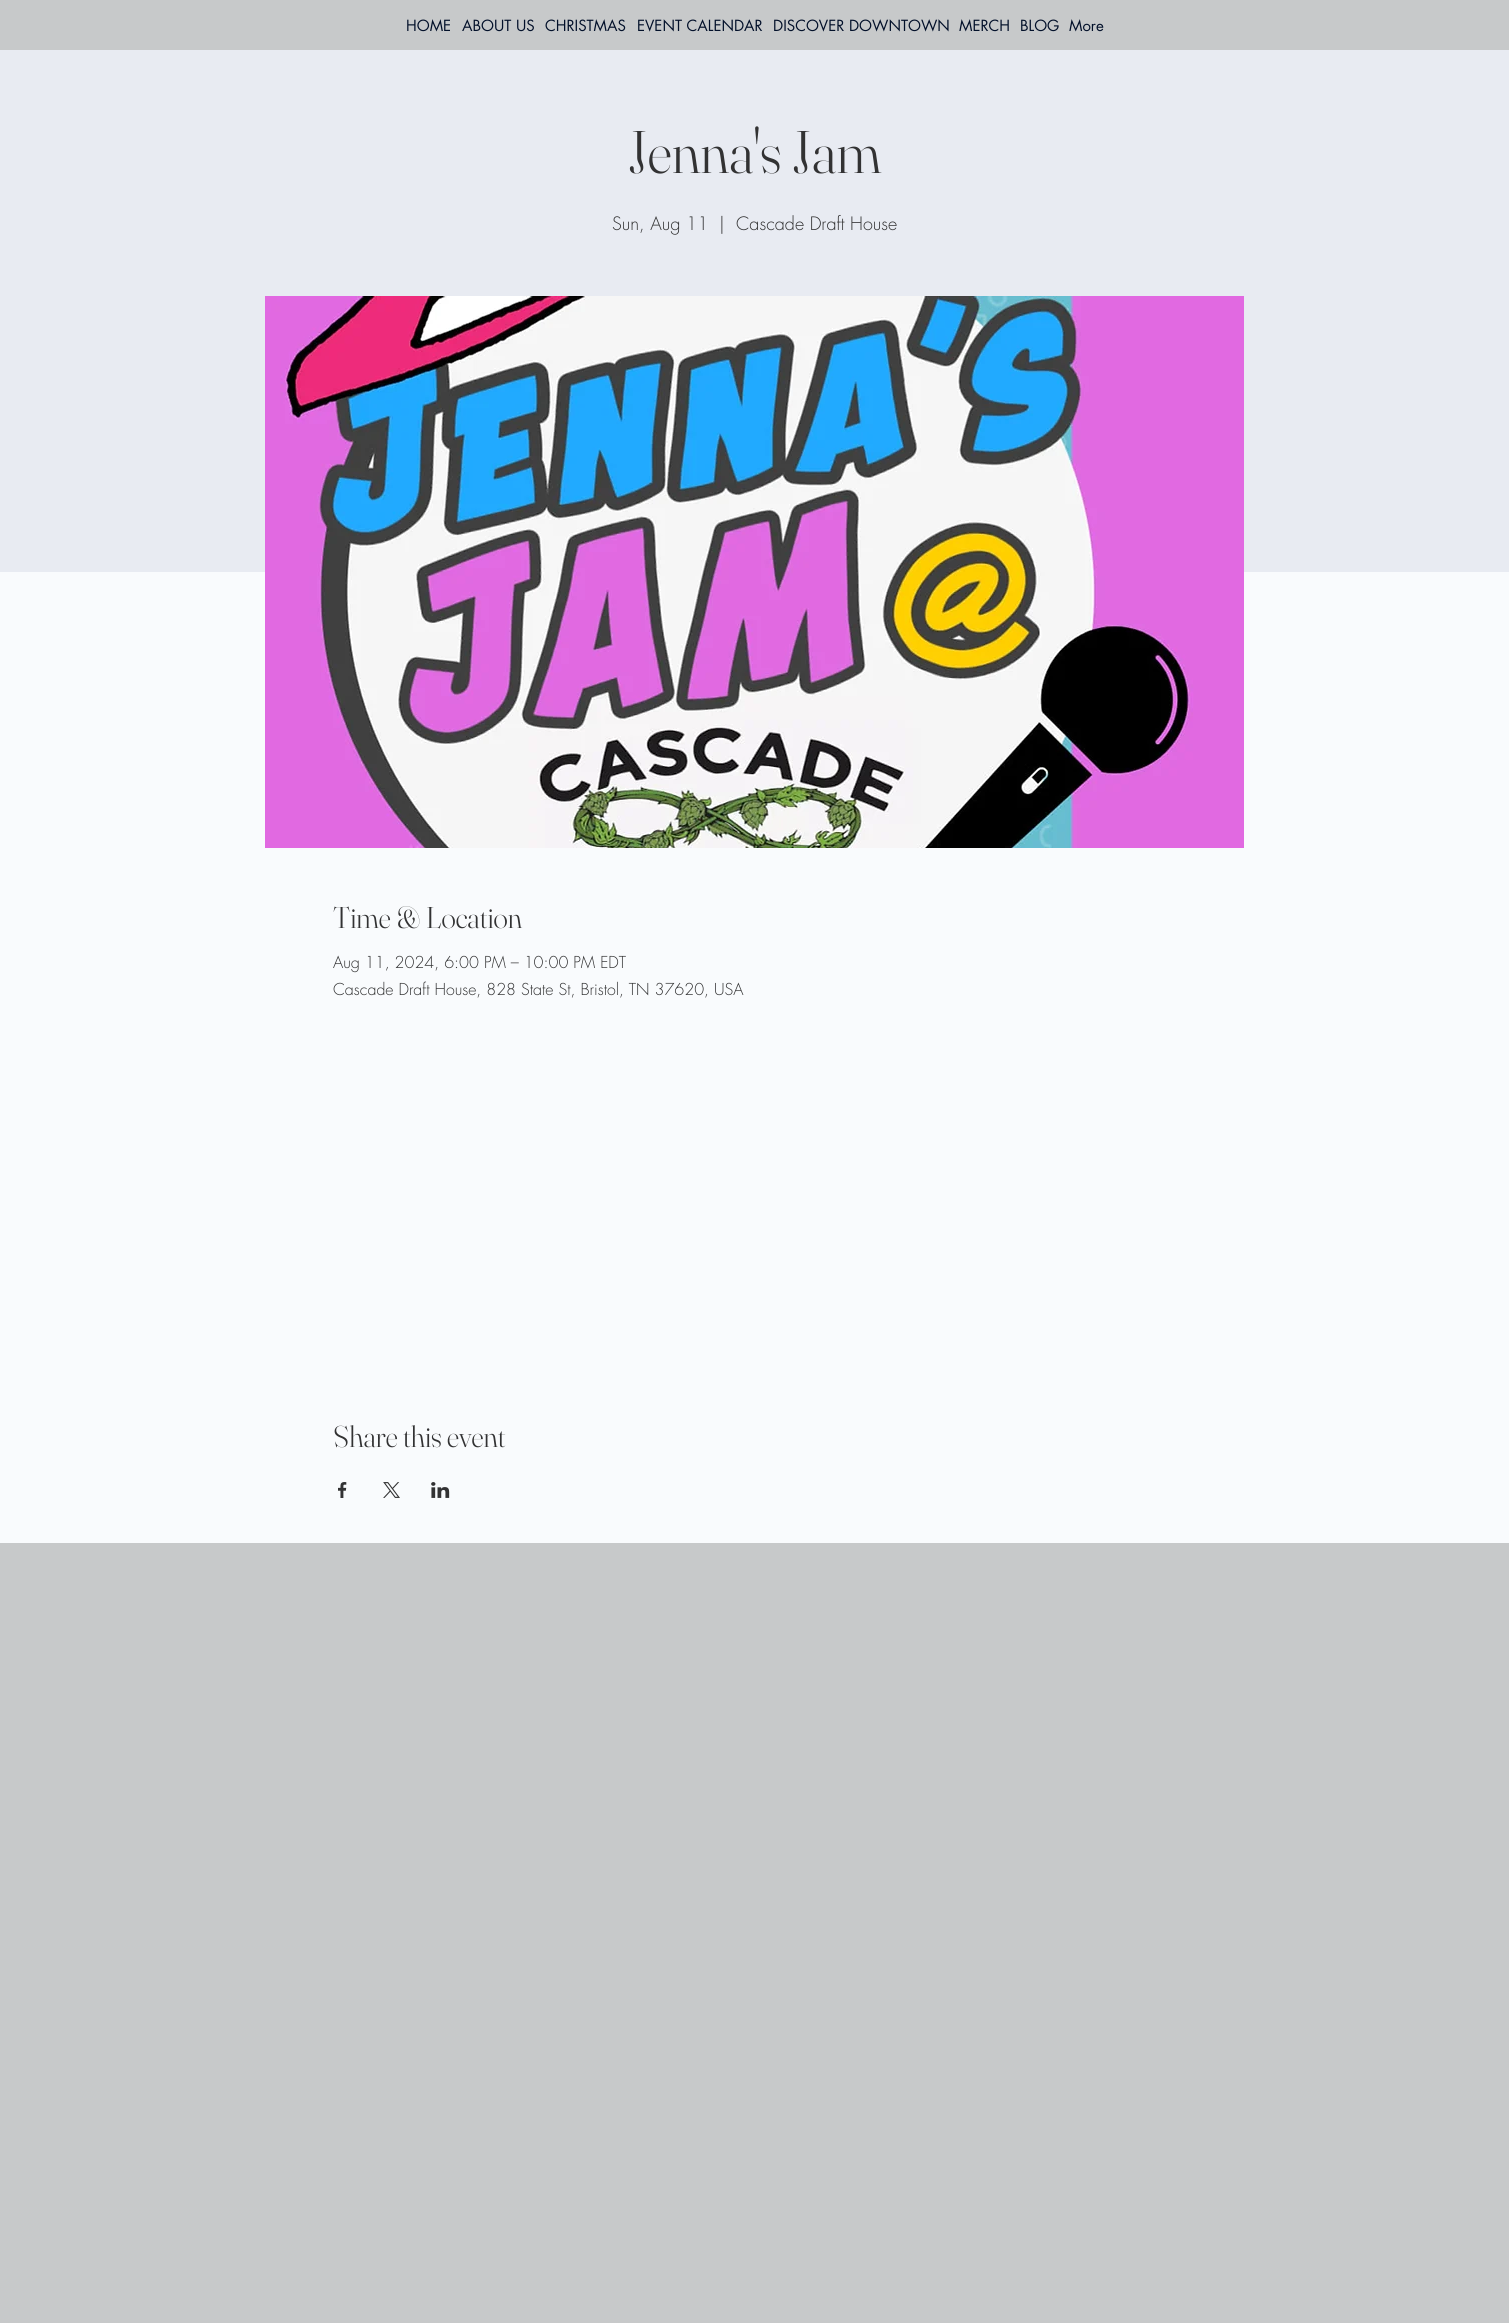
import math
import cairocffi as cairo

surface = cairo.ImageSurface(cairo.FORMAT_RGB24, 1509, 2323)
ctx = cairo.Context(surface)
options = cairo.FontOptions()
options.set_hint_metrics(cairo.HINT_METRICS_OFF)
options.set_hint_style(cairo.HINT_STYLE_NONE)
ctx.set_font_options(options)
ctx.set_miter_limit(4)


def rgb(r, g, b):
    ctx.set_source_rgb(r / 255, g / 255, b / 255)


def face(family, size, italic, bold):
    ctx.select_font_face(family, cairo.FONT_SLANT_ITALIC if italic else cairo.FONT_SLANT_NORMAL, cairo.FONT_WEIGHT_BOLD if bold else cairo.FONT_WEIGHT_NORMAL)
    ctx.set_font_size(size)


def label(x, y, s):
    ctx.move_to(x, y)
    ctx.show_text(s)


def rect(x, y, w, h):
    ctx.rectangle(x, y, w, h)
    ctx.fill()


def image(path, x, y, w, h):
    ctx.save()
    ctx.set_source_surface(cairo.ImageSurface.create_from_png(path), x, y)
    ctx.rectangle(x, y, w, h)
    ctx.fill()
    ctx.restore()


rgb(199, 201, 202)
ctx.paint()
face('futura', 15, 0, 0)
rgb(2, 16, 42)
label(406, 31, 'HOME')
label(462, 31, 'ABOUT US')
label(545, 31, 'CHRISTMAS')
label(637, 31, 'EVENT CALENDAR')
label(773, 31, 'DISCOVER DOWNTOWN')
label(959, 31, 'MERCH')
label(1020, 31, 'BLOG')
label(1069, 31, 'More')
rgb(232, 235, 242)
rect(0, 50, 1509, 522)
face('Fraunces Light', 60, 0, 0)
rgb(50, 50, 51)
label(628, 173, 'Jenna\'s Jam')
face('futura Light', 18, 0, 0)
label(612, 230, 'Sun, Aug 11')
label(719, 230, '|')
label(736, 230, 'Cascade Draft House')
rgb(249, 251, 253)
rect(0, 572, 1509, 971)
image('image0.png', 265, 296, 979, 552)
face('Fraunces Light', 30, 0, 0)
rgb(50, 50, 51)
label(333, 928, 'Time & Location')
face('futura Light', 16, 0, 0)
label(333, 968, 'Aug 11, 2024, 6:00 PM – 10:00 PM EDT')
label(333, 995, 'Cascade Draft House, 828 State St, Bristol, TN 37620, USA')
face('Fraunces Light', 30, 0, 0)
label(333, 1447, 'Share this event')
image('image1.png', 338, 1482, 9, 16)
image('image2.png', 383, 1482, 17, 16)
image('image3.png', 431, 1482, 19, 16)
surface.write_to_png('render.png')
